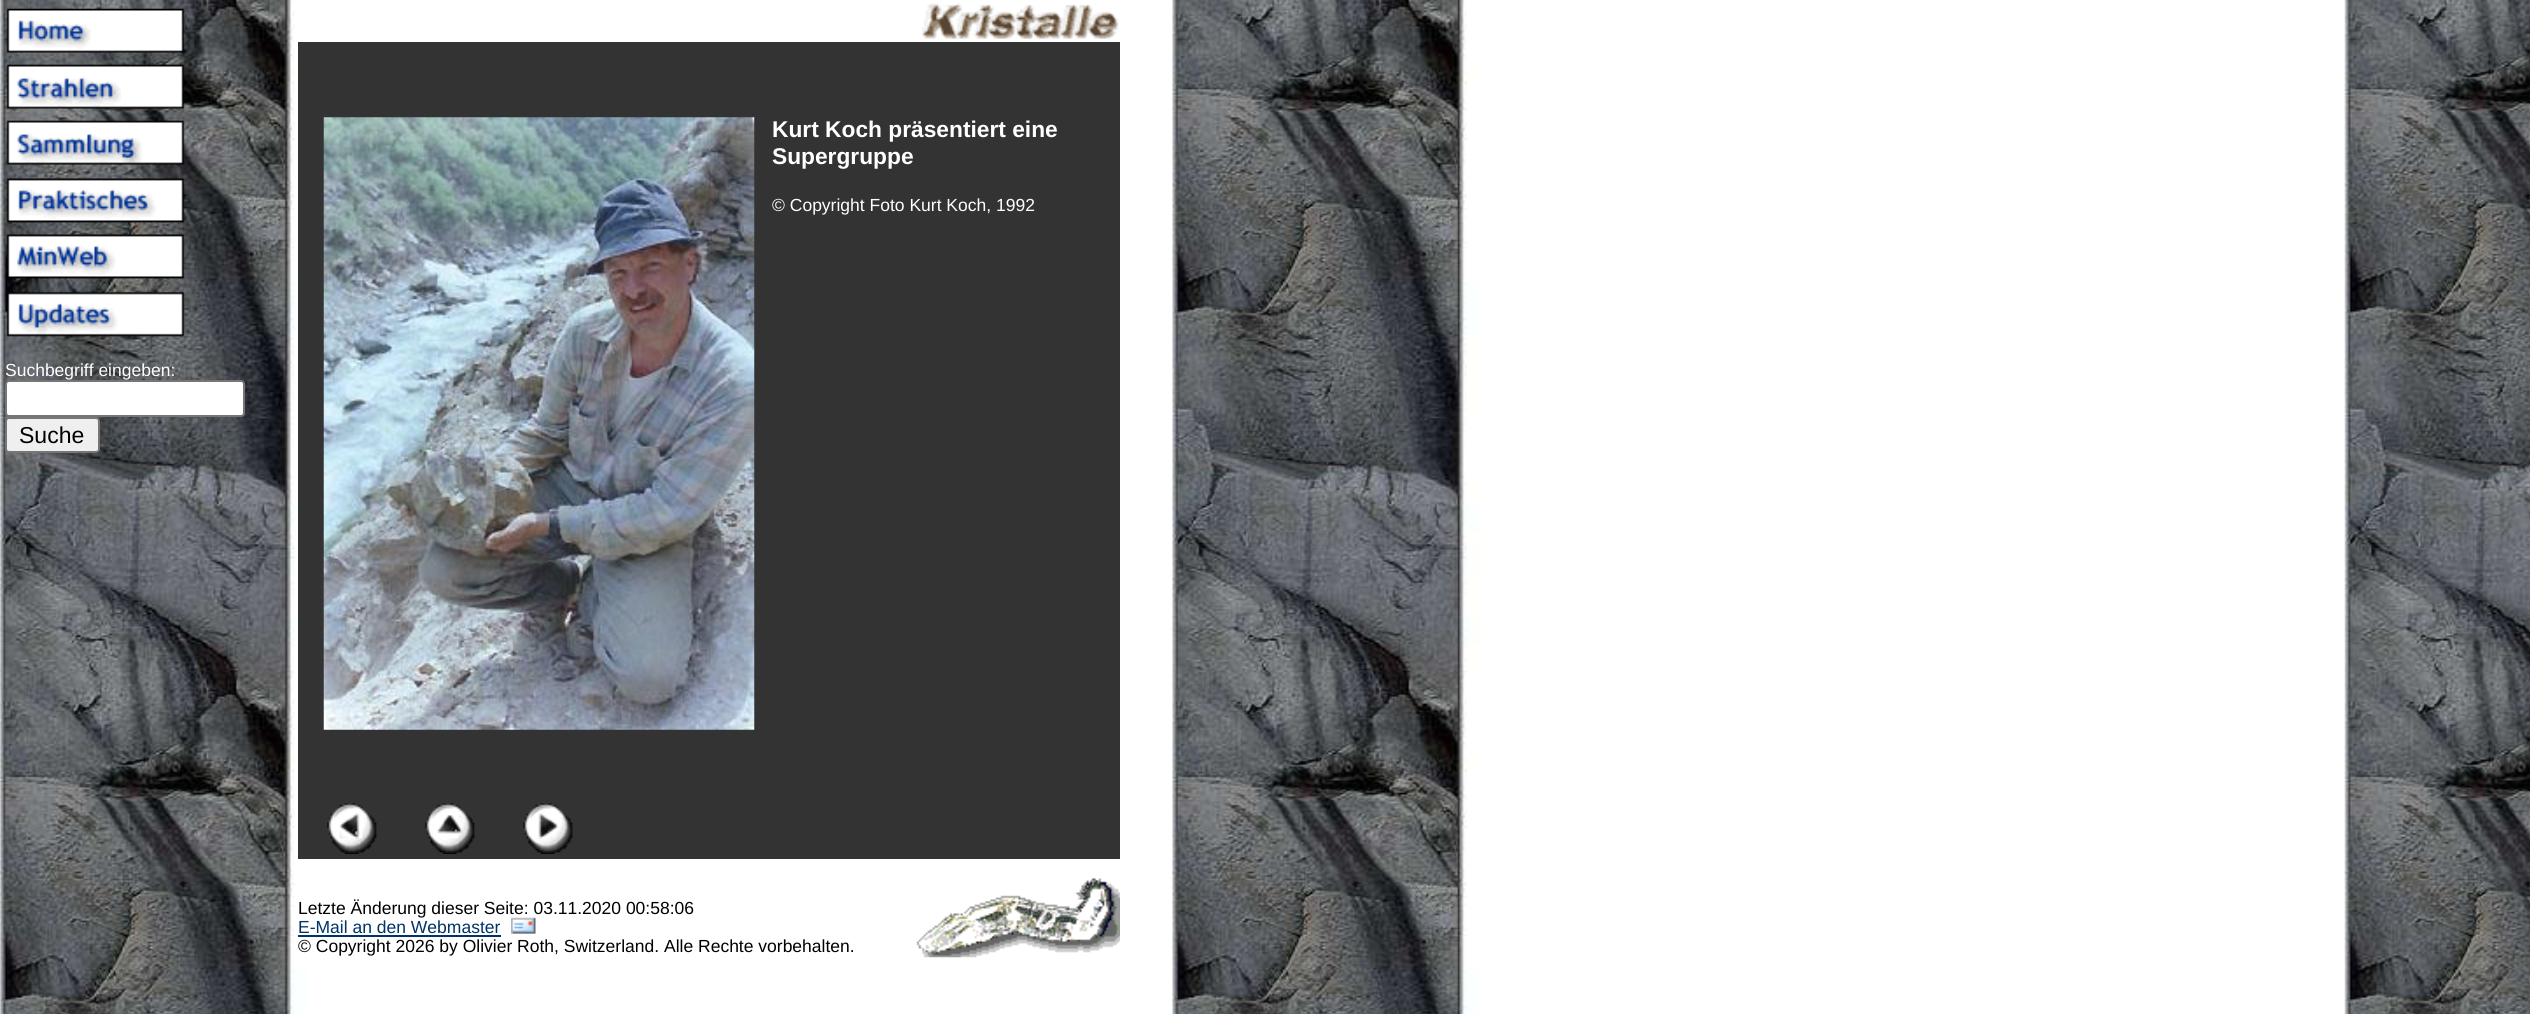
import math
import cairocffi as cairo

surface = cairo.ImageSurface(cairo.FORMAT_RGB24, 2530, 1014)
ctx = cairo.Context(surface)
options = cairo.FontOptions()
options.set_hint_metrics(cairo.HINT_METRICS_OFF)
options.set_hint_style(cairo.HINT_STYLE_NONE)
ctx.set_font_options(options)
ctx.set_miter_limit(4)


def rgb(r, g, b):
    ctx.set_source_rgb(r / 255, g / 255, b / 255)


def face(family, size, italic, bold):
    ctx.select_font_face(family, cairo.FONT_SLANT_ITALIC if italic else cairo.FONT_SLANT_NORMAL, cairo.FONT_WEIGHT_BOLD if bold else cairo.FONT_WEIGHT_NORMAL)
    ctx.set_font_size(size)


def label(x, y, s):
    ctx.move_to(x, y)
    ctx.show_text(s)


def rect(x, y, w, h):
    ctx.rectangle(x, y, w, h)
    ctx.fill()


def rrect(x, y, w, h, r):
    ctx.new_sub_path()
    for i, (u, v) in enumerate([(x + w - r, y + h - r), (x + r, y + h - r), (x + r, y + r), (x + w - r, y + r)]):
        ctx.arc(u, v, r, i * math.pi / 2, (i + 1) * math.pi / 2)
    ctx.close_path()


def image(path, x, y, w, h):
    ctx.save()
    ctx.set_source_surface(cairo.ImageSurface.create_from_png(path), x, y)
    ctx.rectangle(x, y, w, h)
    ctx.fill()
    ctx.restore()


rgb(255, 255, 255)
ctx.paint()
image('image0.png', 0, 0, 2530, 1014)
image('image1.png', 922, 3, 197, 36)
rgb(51, 51, 51)
rect(298, 42, 822, 817)
image('image2.png', 323, 117, 432, 613)
face('Liberation Sans', 22.75, 0, 1)
rgb(255, 255, 255)
label(772, 137, 'Kurt Koch präsentiert eine')
label(772, 164, 'Supergruppe')
face('Liberation Sans', 17.5, 0, 0)
label(772, 211, '© Copyright Foto Kurt Koch, 1992')
image('image3.png', 327, 803, 50, 51)
image('image4.png', 425, 803, 50, 51)
image('image5.png', 523, 803, 50, 51)
image('image6.png', 6, 8, 179, 329)
label(5, 376, 'Suchbegriff eingeben:')
rrect(6, 381, 238, 35, 3)
ctx.fill_preserve()
rgb(118, 118, 118)
ctx.stroke()
rgb(239, 239, 239)
rrect(6, 418, 93, 34, 3)
ctx.fill_preserve()
rgb(118, 118, 118)
ctx.stroke()
face('Liberation Sans', 23, 0, 0)
rgb(0, 0, 0)
label(19, 443, 'Suche')
face('Liberation Sans', 17.5, 0, 0)
label(298, 914, 'Letzte Änderung dieser Seite: 03.11.2020 00:58:06')
image('image7.png', 916, 878, 204, 80)
rgb(0, 51, 102)
label(298, 933, 'E-Mail an den Webmaster')
rect(298, 935, 203, 2)
image('image8.png', 511, 917, 25, 17)
rgb(0, 0, 0)
label(298, 952, '© Copyright 2026 by Olivier Roth, Switzerland. Alle Rechte vorbehalten.')
surface.write_to_png('render.png')
